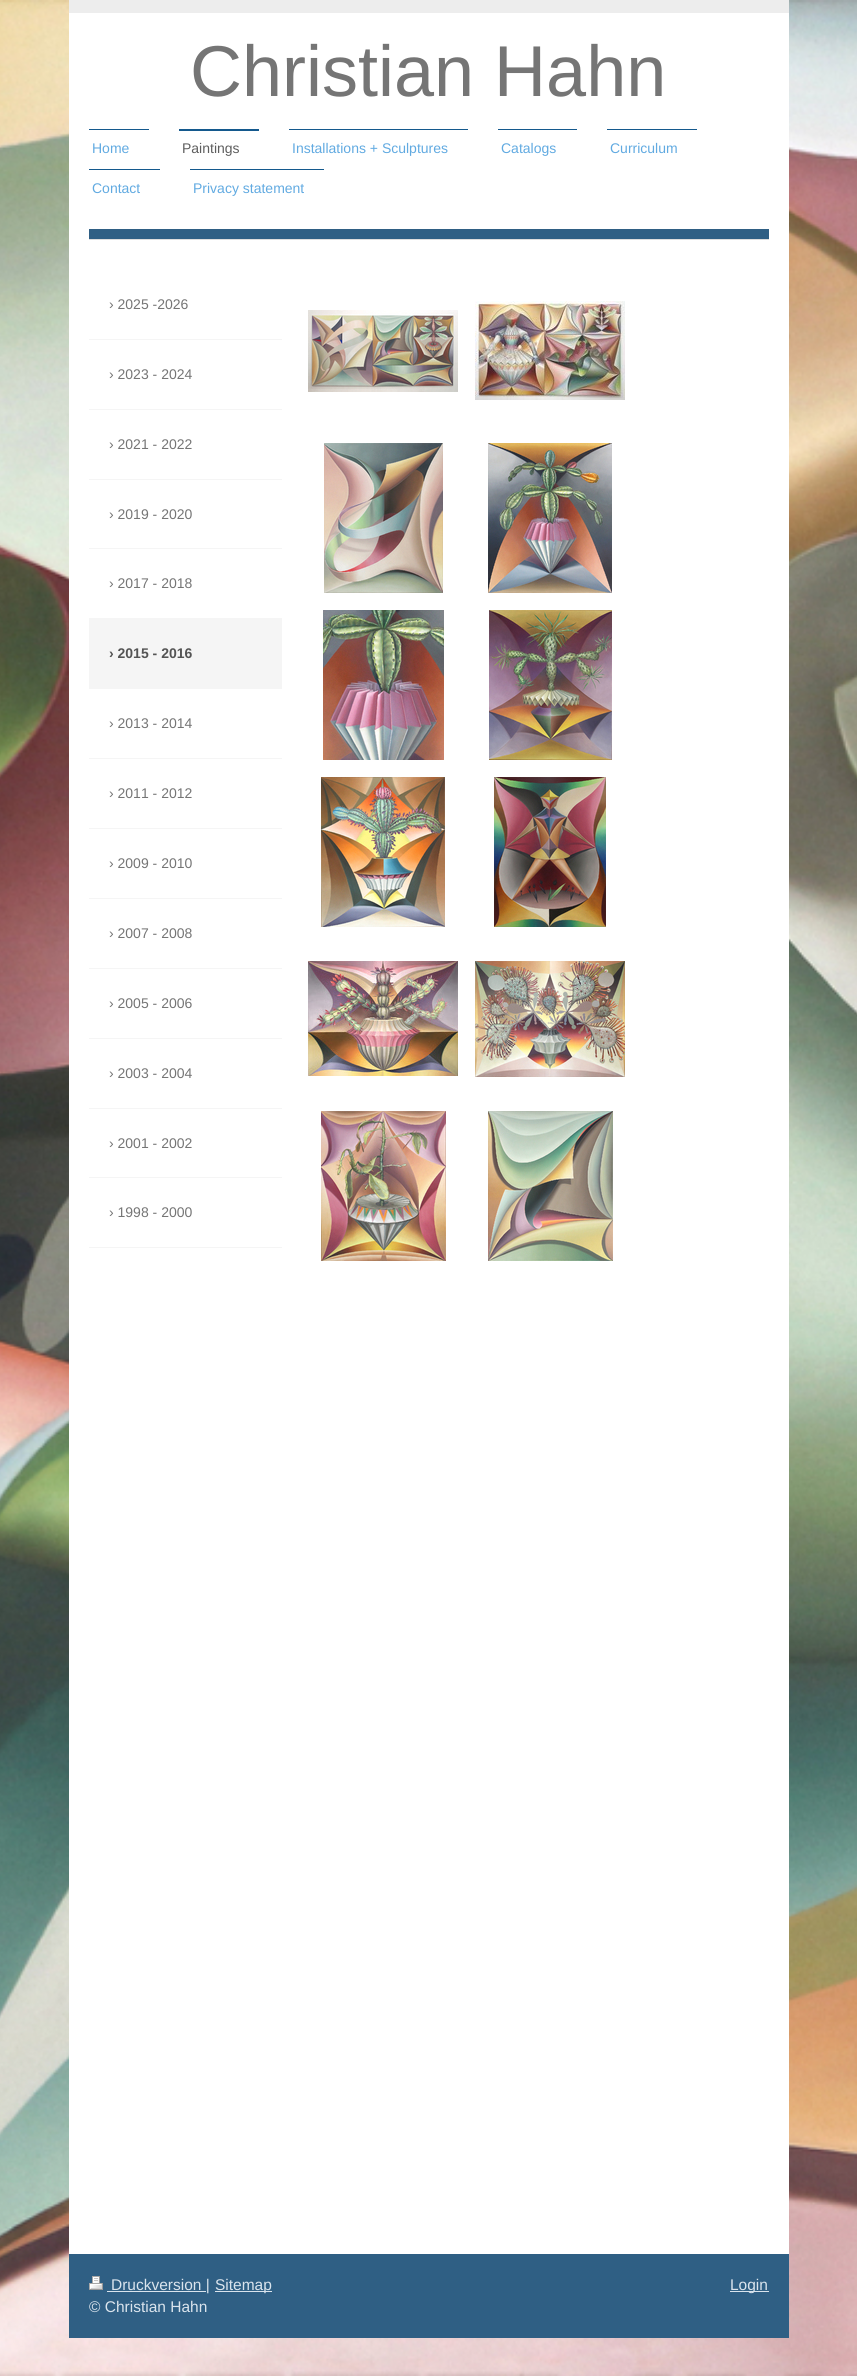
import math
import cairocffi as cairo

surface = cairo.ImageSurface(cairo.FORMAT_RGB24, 857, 2376)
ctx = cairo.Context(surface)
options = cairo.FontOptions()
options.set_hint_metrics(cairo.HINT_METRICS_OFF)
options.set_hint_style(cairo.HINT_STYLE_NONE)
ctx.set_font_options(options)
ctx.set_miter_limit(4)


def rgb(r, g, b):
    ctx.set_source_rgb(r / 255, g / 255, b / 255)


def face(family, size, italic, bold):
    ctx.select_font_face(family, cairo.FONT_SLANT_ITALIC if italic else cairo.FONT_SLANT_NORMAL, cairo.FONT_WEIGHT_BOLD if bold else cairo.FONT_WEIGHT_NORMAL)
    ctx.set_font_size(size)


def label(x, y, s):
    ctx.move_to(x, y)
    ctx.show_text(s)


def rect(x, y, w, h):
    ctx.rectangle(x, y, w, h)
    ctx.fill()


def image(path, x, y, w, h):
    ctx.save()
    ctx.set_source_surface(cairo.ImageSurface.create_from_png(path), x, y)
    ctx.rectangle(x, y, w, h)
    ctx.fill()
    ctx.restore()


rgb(255, 255, 255)
ctx.paint()
image('image0.png', 0, 0, 857, 2376)
rgb(255, 255, 255)
rect(69, 13, 720, 2241)
rgb(237, 237, 237)
rect(69, 0, 720, 13)
face('Liberation Sans', 72, 0, 0)
rgb(117, 117, 117)
label(190, 96, 'Christian Hahn')
rgb(20, 89, 141)
rect(89, 129, 60, 1)
face('Liberation Sans', 14, 0, 0)
rgb(97, 170, 225)
label(92, 153, 'Home')
rgb(20, 89, 141)
rect(179, 129, 80, 2)
rgb(94, 94, 94)
label(182, 153, 'Paintings')
rgb(20, 89, 141)
rect(289, 129, 179, 1)
rgb(97, 170, 225)
label(292, 153, 'Installations + Sculptures')
rgb(20, 89, 141)
rect(498, 129, 79, 1)
rgb(97, 170, 225)
label(501, 153, 'Catalogs')
rgb(20, 89, 141)
rect(607, 129, 90, 1)
rgb(97, 170, 225)
label(610, 153, 'Curriculum')
rgb(20, 89, 141)
rect(89, 169, 71, 1)
rgb(97, 170, 225)
label(92, 193, 'Contact')
rgb(20, 89, 141)
rect(190, 169, 134, 1)
rgb(97, 170, 225)
label(193, 193, 'Privacy statement')
rgb(47, 95, 132)
rect(89, 229, 680, 10)
rgb(221, 221, 221)
rect(89, 239, 680, 1)
rgb(245, 245, 245)
rect(89, 339, 193, 1)
rgb(117, 117, 117)
label(109, 309, '› 2025 -2026')
rgb(245, 245, 245)
rect(89, 409, 193, 1)
rgb(117, 117, 117)
label(109, 379, '› 2023 - 2024')
rgb(245, 245, 245)
rect(89, 479, 193, 1)
rgb(117, 117, 117)
label(109, 449, '› 2021 - 2022')
rgb(245, 245, 245)
rect(89, 548, 193, 1)
rgb(117, 117, 117)
label(109, 519, '› 2019 - 2020')
rgb(245, 245, 245)
rect(89, 618, 193, 71)
rgb(117, 117, 117)
label(109, 588, '› 2017 - 2018')
face('Liberation Sans', 14, 0, 1)
rgb(84, 84, 84)
label(109, 658, '› 2015 - 2016')
rgb(245, 245, 245)
rect(89, 758, 193, 1)
face('Liberation Sans', 14, 0, 0)
rgb(117, 117, 117)
label(109, 728, '› 2013 - 2014')
rgb(245, 245, 245)
rect(89, 828, 193, 1)
rgb(117, 117, 117)
label(109, 798, '› 2011 - 2012')
rgb(245, 245, 245)
rect(89, 898, 193, 1)
rgb(117, 117, 117)
label(109, 868, '› 2009 - 2010')
rgb(245, 245, 245)
rect(89, 968, 193, 1)
rgb(117, 117, 117)
label(109, 938, '› 2007 - 2008')
rgb(245, 245, 245)
rect(89, 1038, 193, 1)
rgb(117, 117, 117)
label(109, 1008, '› 2005 - 2006')
rgb(245, 245, 245)
rect(89, 1108, 193, 1)
rgb(117, 117, 117)
label(109, 1078, '› 2003 - 2004')
rgb(245, 245, 245)
rect(89, 1177, 193, 1)
rgb(117, 117, 117)
label(109, 1148, '› 2001 - 2002')
rgb(245, 245, 245)
rect(89, 1247, 193, 1)
rgb(117, 117, 117)
label(109, 1217, '› 1998 - 2000')
image('image1.png', 308, 310, 150, 82)
image('image2.png', 475, 301, 150, 99)
image('image3.png', 324, 443, 119, 150)
image('image4.png', 488, 443, 124, 150)
image('image5.png', 323, 610, 121, 150)
image('image6.png', 489, 610, 123, 150)
image('image7.png', 321, 777, 124, 150)
image('image8.png', 494, 777, 112, 150)
image('image9.png', 308, 961, 150, 115)
image('image10.png', 475, 961, 150, 116)
image('image11.png', 321, 1111, 125, 150)
image('image12.png', 488, 1111, 125, 150)
rgb(47, 95, 132)
rect(69, 2254, 720, 84)
image('image13.png', 89, 2276, 14, 14)
rgb(218, 228, 237)
rect(107, 2291, 99, 1)
face('Liberation Sans', 15.5, 0, 0)
label(111, 2290, 'Druckversion |')
rect(215, 2291, 57, 1)
label(215, 2290, 'Sitemap')
ctx.save()
ctx.rectangle(89, 2274, 680, 44)
ctx.clip()
label(89, 2312, '© Christian Hahn')
ctx.restore()
rect(730, 2291, 39, 1)
label(730, 2290, 'Login')
surface.write_to_png('render.png')
